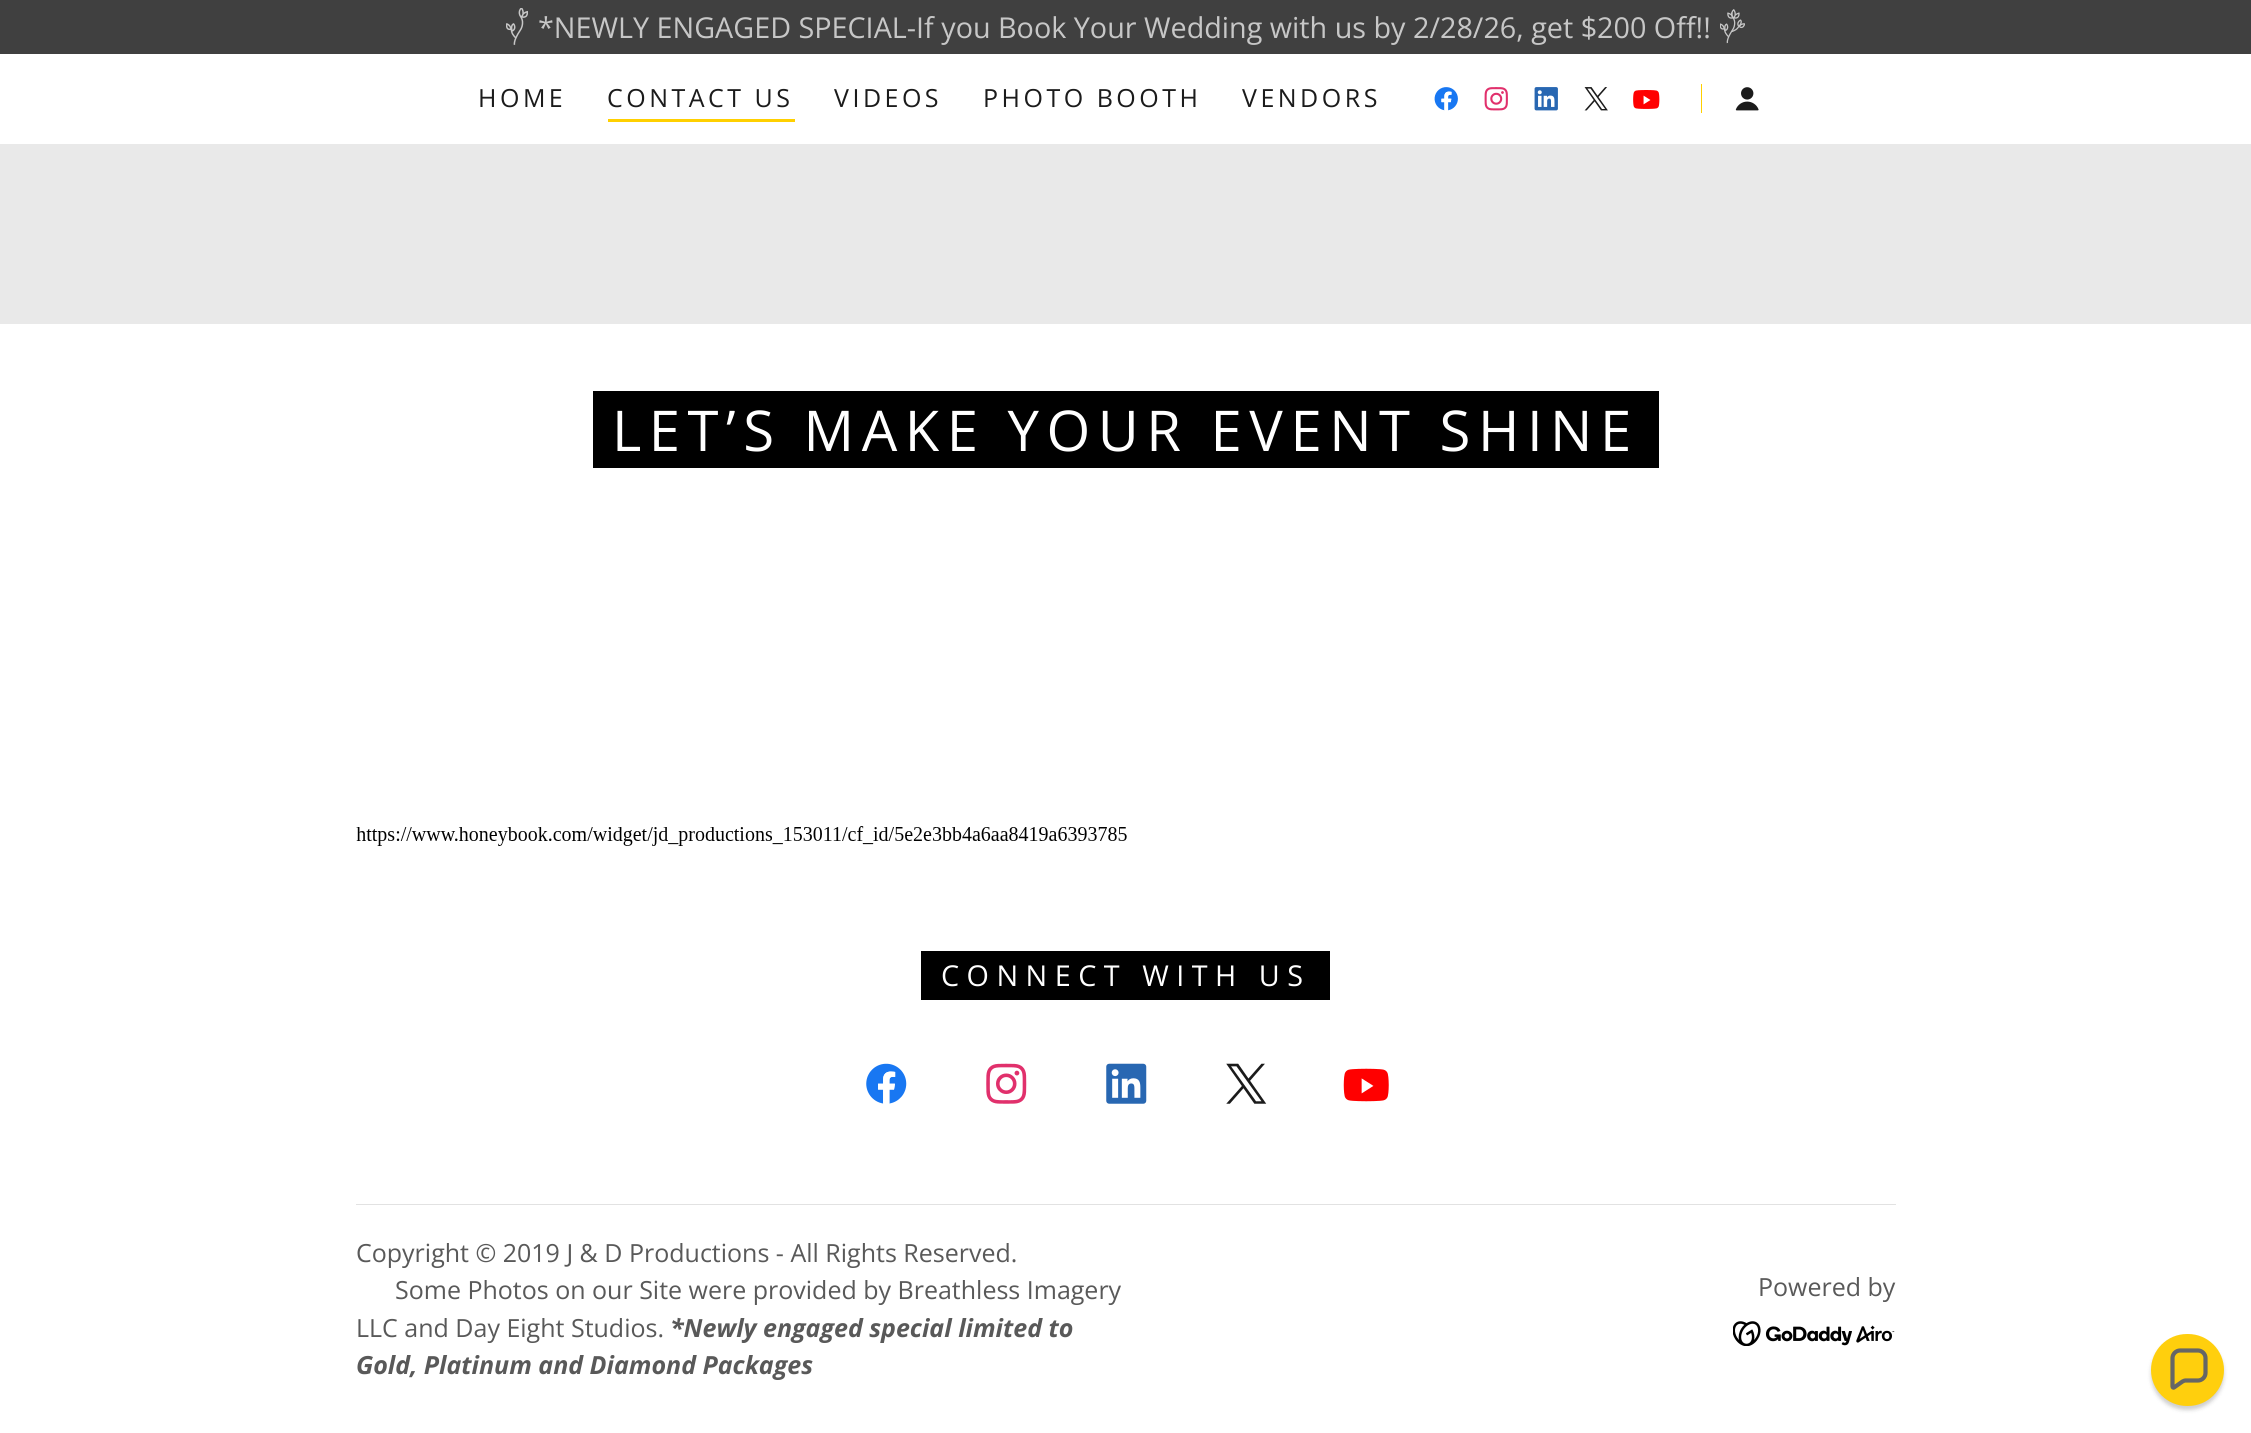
import math
import cairocffi as cairo

surface = cairo.ImageSurface(cairo.FORMAT_RGB24, 2251, 1433)
ctx = cairo.Context(surface)
options = cairo.FontOptions()
options.set_hint_metrics(cairo.HINT_METRICS_OFF)
options.set_hint_style(cairo.HINT_STYLE_NONE)
ctx.set_font_options(options)
ctx.set_miter_limit(4)


def rgb(r, g, b):
    ctx.set_source_rgb(r / 255, g / 255, b / 255)


def face(family, size, italic, bold):
    ctx.select_font_face(family, cairo.FONT_SLANT_ITALIC if italic else cairo.FONT_SLANT_NORMAL, cairo.FONT_WEIGHT_BOLD if bold else cairo.FONT_WEIGHT_NORMAL)
    ctx.set_font_size(size)


def label(x, y, s):
    ctx.move_to(x, y)
    ctx.show_text(s)


def tracked(x, y, s, letter, word):
    ctx.move_to(x, y)
    for ch in s:
        ctx.show_text(ch)
        ctx.rel_move_to(letter + word * (ch == ' '), 0)


def rect(x, y, w, h):
    ctx.rectangle(x, y, w, h)
    ctx.fill()


def rrect(x, y, w, h, r):
    ctx.new_sub_path()
    for i, (u, v) in enumerate([(x + w - r, y + h - r), (x + r, y + h - r), (x + r, y + r), (x + w - r, y + r)]):
        ctx.arc(u, v, r, i * math.pi / 2, (i + 1) * math.pi / 2)
    ctx.close_path()


def soft_shadow(x, y, w, h, r, blur, alpha):
    ctx.push_group_with_content(cairo.CONTENT_ALPHA)
    ctx.set_operator(cairo.OPERATOR_SOURCE)
    for i in range(15, -16, -2):
        e = blur * i / 6
        if min(w, h) + 2 * e > 0:
            ctx.set_source_rgba(0, 0, 0, alpha * math.erfc((i - 1) / 8.5) / 2)
            rrect(x - e, y - e, w + 2 * e, h + 2 * e, max(0, min(r + e + blur * .6, min(w, h) / 2 + e)))
            ctx.fill()
    ctx.mask(ctx.pop_group())


def image(path, x, y, w, h):
    ctx.save()
    ctx.set_source_surface(cairo.ImageSurface.create_from_png(path), x, y)
    ctx.rectangle(x, y, w, h)
    ctx.fill()
    ctx.restore()


rgb(255, 255, 255)
ctx.paint()
rgb(64, 64, 64)
rect(0, 0, 2251, 54)
image('image0.png', 506, 8, 22, 37)
face('Open Sans', 28.75, 0, 0)
rgb(199, 199, 199)
label(538, 38, '*NEWLY ENGAGED SPECIAL-If you Book Your Wedding with us by 2/28/26, get $200 Off!!')
image('image1.png', 1720, 9, 25, 35)
face('Open Sans', 25, 0, 0)
rgb(27, 27, 27)
tracked(478, 107, 'HOME', 3.5, 0)
rgb(255, 208, 0)
rect(608, 119, 187, 3)
rgb(27, 27, 27)
tracked(607, 107, 'CONTACT US', 3.5, 0)
tracked(834, 107, 'VIDEOS', 3.5, 0)
tracked(983, 107, 'PHOTO BOOTH', 3.5, 0)
tracked(1242, 107, 'VENDORS', 3.5, 0)
image('image2.png', 1434, 87, 24, 24)
image('image3.png', 1484, 87, 24, 24)
image('image4.png', 1534, 87, 24, 24)
image('image5.png', 1584, 87, 24, 24)
image('image6.png', 1633, 90, 27, 19)
rgb(255, 208, 0)
rect(1701, 84, 1, 29)
image('image7.png', 1735, 87, 24, 24)
rgb(233, 233, 233)
rect(0, 144, 2251, 180)
rgb(0, 0, 0)
rect(593, 391, 1066, 77)
face('Open Sans', 56.25, 0, 0)
rgb(255, 255, 255)
tracked(612, 451, 'LET’S MAKE YOUR EVENT SHINE', 7.5, 0)
image('image8.png', 356, 826, 771, 20)
rgb(0, 0, 0)
rect(921, 951, 409, 49)
face('Open Sans', 28.75, 0, 0)
rgb(255, 255, 255)
tracked(941, 986, 'CONNECT WITH US', 7.5, 0)
image('image9.png', 866, 1063, 41, 41)
image('image10.png', 986, 1063, 41, 41)
image('image11.png', 1106, 1063, 41, 41)
image('image12.png', 1226, 1063, 41, 41)
image('image13.png', 1343, 1068, 46, 34)
rgb(226, 226, 226)
rect(356, 1204, 1540, 1)
face('Open Sans', 25, 0, 0)
rgb(89, 89, 89)
label(356, 1262, 'Copyright © 2019 J & D Productions - All Rights Reserved.')
label(395, 1299, 'Some Photos on our Site were provided by Breathless Imagery')
label(356, 1337, 'LLC and Day Eight Studios.')
face('Open Sans', 25, 1, 1)
label(670, 1337, '*Newly engaged special limited to')
label(356, 1374, 'Gold, Platinum and Diamond Packages')
face('Open Sans', 25, 0, 0)
label(1758, 1296, 'Powered by')
image('image14.png', 1733, 1321, 162, 25)
rgb(13, 13, 13)
soft_shadow(2151, 1338, 73, 72, 36, 2, 0.2)
rgb(255, 207, 13)
rrect(2151, 1334, 73, 72, 36)
ctx.fill()
ctx.new_path()
ctx.move_to(2198, 1350.5)
ctx.line_to(2180, 1350.5)
ctx.curve_to(2176, 1350.5, 2172.5, 1354, 2172.5, 1358)
ctx.line_to(2172.5, 1386.5)
ctx.curve_to(2172.5, 1387.5, 2173.5, 1388, 2174, 1387.5)
ctx.line_to(2182.5, 1381.5)
ctx.curve_to(2183.5, 1381, 2184.5, 1380.5, 2185.5, 1380.5)
ctx.line_to(2198, 1380.5)
ctx.curve_to(2202, 1380.5, 2205.5, 1377, 2205.5, 1373)
ctx.line_to(2205.5, 1358)
ctx.curve_to(2205.5, 1354, 2202, 1350.5, 2198, 1350.5)
ctx.close_path()
rgb(102, 102, 102)
ctx.set_line_width(4.2)
ctx.stroke()
surface.write_to_png('render.png')
